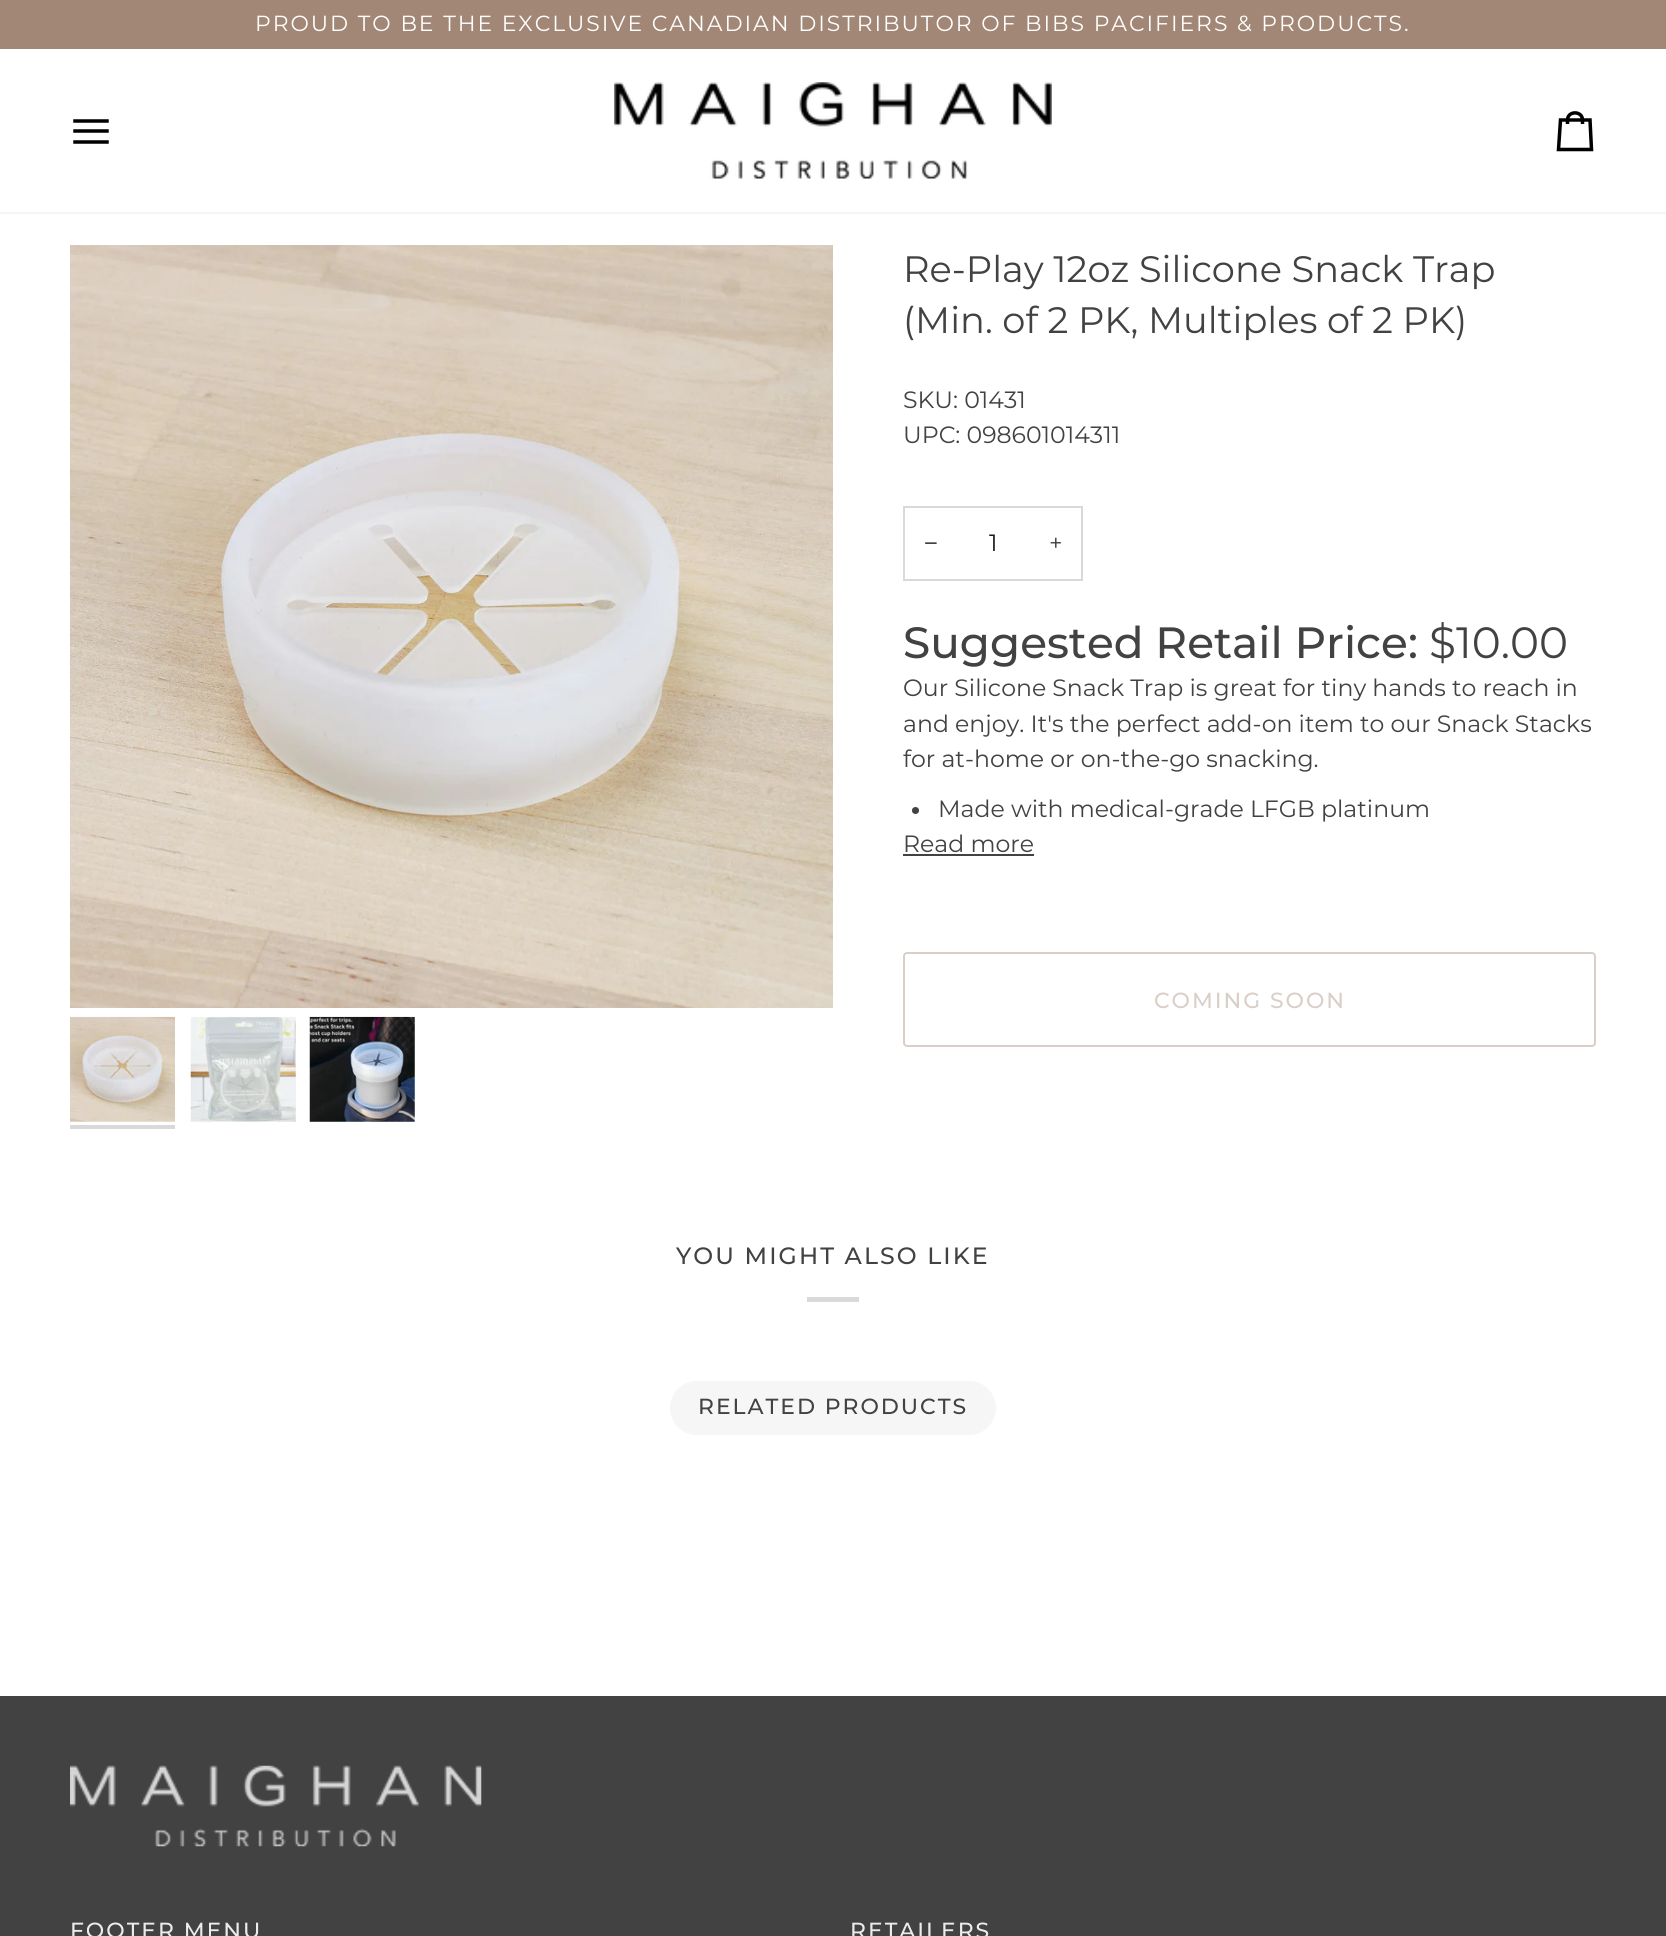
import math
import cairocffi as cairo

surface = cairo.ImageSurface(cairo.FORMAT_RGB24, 1666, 1936)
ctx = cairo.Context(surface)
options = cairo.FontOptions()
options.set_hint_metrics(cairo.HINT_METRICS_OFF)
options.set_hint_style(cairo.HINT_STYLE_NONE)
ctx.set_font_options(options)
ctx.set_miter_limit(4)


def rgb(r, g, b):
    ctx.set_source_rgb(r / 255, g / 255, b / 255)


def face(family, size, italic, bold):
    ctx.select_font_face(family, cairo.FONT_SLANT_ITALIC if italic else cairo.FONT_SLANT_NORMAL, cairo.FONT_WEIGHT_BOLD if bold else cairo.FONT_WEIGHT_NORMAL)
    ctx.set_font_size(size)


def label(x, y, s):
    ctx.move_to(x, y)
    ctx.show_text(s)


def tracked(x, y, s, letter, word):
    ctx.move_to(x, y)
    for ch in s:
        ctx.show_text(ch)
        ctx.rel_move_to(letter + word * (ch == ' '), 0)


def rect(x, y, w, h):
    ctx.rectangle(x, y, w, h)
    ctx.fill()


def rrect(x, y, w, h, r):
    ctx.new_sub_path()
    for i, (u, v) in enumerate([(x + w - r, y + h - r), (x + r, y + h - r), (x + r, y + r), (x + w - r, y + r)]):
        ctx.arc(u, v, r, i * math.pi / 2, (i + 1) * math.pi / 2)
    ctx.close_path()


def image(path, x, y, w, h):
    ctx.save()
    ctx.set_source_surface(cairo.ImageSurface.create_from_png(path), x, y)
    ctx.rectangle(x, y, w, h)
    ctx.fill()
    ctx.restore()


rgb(255, 255, 255)
ctx.paint()
rgb(162, 135, 118)
rect(0, 0, 1666, 49)
face('Montserrat', 21.88, 0, 0)
rgb(255, 255, 255)
tracked(255, 31, 'PROUD TO BE THE EXCLUSIVE CANADIAN DISTRIBUTOR OF BIBS PACIFIERS & PRODUCTS.', 1.97, 0)
rgb(247, 245, 244)
rect(0, 212, 1666, 2)
ctx.new_path()
ctx.move_to(107, 121)
ctx.line_to(75, 121)
ctx.move_to(107, 131)
ctx.line_to(75, 131)
ctx.move_to(107, 142)
ctx.line_to(75, 142)
rgb(0, 0, 0)
ctx.set_line_width(3.5)
ctx.set_line_cap(cairo.LINE_CAP_SQUARE)
ctx.stroke()
image('image0.png', 614, 82, 438, 97)
ctx.new_path()
ctx.move_to(1582.5, 124)
ctx.line_to(1582.5, 120)
ctx.line_to(1590, 120)
ctx.line_to(1591.5, 149.5)
ctx.line_to(1558.5, 149.5)
ctx.line_to(1560.5, 120)
ctx.line_to(1567.5, 120)
ctx.curve_to(1567.5, 110.5, 1582.5, 110.5, 1582.5, 120)
ctx.line_to(1567.5, 120)
ctx.line_to(1567.5, 124)
ctx.set_line_cap(cairo.LINE_CAP_BUTT)
ctx.stroke()
image('image1.png', 70, 245, 763, 763)
image('image2.png', 70, 1016, 105, 106)
rgb(217, 217, 217)
rect(70, 1125, 105, 4)
rgb(246, 246, 246)
rect(191, 1017, 105, 105)
image('image3.png', 190, 1016, 106, 106)
rect(310, 1017, 105, 105)
image('image4.png', 309, 1016, 106, 106)
face('Montserrat', 36.75, 0, 0)
rgb(66, 66, 66)
label(903, 282, 'Re-Play 12oz Silicone Snack Trap')
label(903, 333, '(Min. of 2 PK, Multiples of 2 PK)')
face('Montserrat', 23.6, 0, 0)
label(903, 408, 'SKU: 01431')
label(903, 443, 'UPC: 098601014311')
ctx.rectangle(904, 507, 178, 73)
rgb(217, 217, 217)
ctx.set_line_width(2)
ctx.stroke()
face('Liberation Sans', 23.6, 0, 0)
rgb(66, 66, 66)
label(924, 551, '−')
face('Montserrat', 23.6, 0, 0)
rgb(31, 25, 25)
label(989, 551, '1')
rgb(66, 66, 66)
label(1049, 551, '+')
face('Montserrat Medium', 43.75, 0, 0)
label(903, 658, 'Suggested Retail Price:')
face('Montserrat', 43.75, 0, 0)
label(1429, 658, '$10.00')
face('Montserrat', 23.6, 0, 0)
label(903, 696, 'Our Silicone Snack Trap is great for tiny hands to reach in')
label(903, 732, 'and enjoy. It\'s the perfect add-on item to our Snack Stacks')
label(903, 767, 'for at-home or on-the-go snacking.')
ctx.new_path()
ctx.arc(915.5, 810.5, 3.5, 0, 2 * math.pi)
ctx.fill()
label(938, 817, 'Made with medical-grade LFGB platinum')
label(903, 852, 'Read more')
rect(903, 854, 131, 2)
rrect(904, 953, 691, 93, 3)
rgb(218, 207, 200)
ctx.stroke()
face('Montserrat Medium', 21.88, 0, 0)
tracked(1154, 1008, 'COMING SOON', 1.97, 0)
face('Montserrat Medium', 23.6, 0, 0)
rgb(66, 66, 66)
tracked(676, 1264, 'YOU MIGHT ALSO LIKE', 2.1, 0)
rgb(217, 217, 217)
rect(807, 1297, 52, 5)
rgb(246, 246, 246)
rrect(670, 1381, 326, 54, 27)
ctx.fill()
face('Montserrat Medium', 21.88, 0, 0)
rgb(66, 66, 66)
tracked(698, 1414, 'RELATED PRODUCTS', 1.97, 0)
rect(0, 1696, 1666, 240)
image('image5.png', 70, 1765, 412, 82)
rgb(236, 236, 236)
tracked(70, 1938, 'FOOTER MENU', 1.97, 0)
tracked(850, 1938, 'RETAILERS', 1.97, 0)
surface.write_to_png('render.png')
